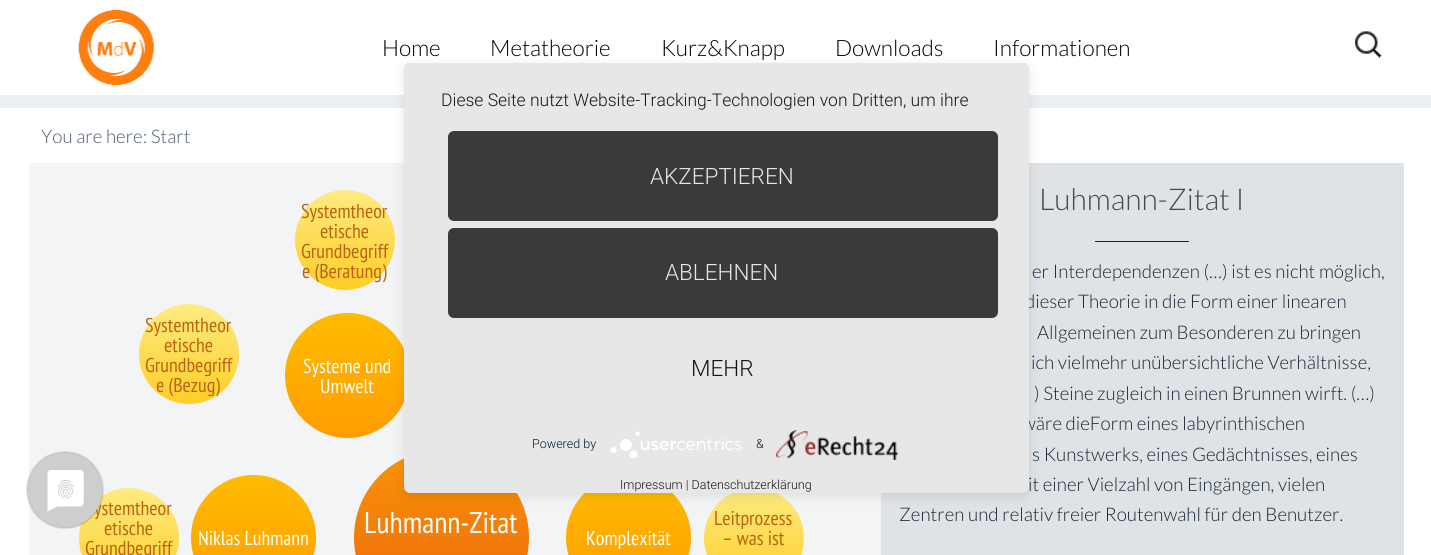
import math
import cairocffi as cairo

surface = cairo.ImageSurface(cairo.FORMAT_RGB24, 1431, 555)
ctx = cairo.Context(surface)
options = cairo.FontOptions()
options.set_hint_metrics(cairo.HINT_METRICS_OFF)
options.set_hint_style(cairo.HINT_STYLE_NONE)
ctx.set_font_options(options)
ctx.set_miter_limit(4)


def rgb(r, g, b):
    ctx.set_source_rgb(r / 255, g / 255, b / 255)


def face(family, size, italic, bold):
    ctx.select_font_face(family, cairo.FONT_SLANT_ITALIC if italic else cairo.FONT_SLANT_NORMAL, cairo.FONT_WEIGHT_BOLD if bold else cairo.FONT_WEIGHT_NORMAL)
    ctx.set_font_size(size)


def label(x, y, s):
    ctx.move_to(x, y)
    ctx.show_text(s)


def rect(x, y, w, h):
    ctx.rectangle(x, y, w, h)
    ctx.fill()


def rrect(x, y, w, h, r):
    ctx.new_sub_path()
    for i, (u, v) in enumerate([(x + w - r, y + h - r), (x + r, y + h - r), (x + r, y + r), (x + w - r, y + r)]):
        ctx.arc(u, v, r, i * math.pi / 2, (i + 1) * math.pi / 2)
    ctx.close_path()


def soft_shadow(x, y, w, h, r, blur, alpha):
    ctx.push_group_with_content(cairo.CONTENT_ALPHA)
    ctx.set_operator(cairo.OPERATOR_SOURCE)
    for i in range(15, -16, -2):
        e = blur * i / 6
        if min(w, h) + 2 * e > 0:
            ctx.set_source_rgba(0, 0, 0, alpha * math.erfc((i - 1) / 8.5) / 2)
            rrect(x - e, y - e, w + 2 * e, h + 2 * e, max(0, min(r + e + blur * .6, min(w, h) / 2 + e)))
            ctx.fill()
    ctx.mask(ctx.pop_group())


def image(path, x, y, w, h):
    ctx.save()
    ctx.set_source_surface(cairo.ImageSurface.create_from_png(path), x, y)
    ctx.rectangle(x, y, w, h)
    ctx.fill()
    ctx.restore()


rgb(255, 255, 255)
ctx.paint()
rgb(233, 239, 242)
rect(0, 95, 1431, 13)
image('image0.png', 78, 10, 76, 75)
face('Lato Light', 22.5, 0, 0)
rgb(0, 0, 0)
label(382, 56, 'Home')
label(490, 56, 'Metatheorie')
label(661, 56, 'Kurz&Knapp')
label(835, 56, 'Downloads')
label(993, 56, 'Informationen')
image('image1.png', 1355, 31, 27, 27)
rgb(242, 244, 245)
rect(29, 163, 852, 392)
face('Lato Light', 18.75, 0, 0)
rgb(73, 89, 108)
label(41, 143, 'You are here: Start')
gradient = cairo.LinearGradient(345, 190, 345, 290)
gradient.add_color_stop_rgba(0, 0.996, 0.922, 0.51, 1)
gradient.add_color_stop_rgba(1, 1, 0.808, 0.153, 1)
ctx.set_source(gradient)
ctx.new_path()
ctx.arc(345, 240, 50, 0, 2 * math.pi)
ctx.fill()
face('PT Sans Narrow', 20, 0, 0)
rgb(187, 100, 15)
label(301, 218, 'Systemtheor')
label(320, 238, 'etische')
label(301, 258, 'Grundbegriff')
label(302, 278, 'e (Beratung)')
gradient = cairo.LinearGradient(189, 304, 189, 404)
gradient.add_color_stop_rgba(0, 0.996, 0.922, 0.51, 1)
gradient.add_color_stop_rgba(1, 1, 0.808, 0.153, 1)
ctx.set_source(gradient)
ctx.new_path()
ctx.arc(189, 354, 50, 0, 2 * math.pi)
ctx.fill()
rgb(187, 100, 15)
label(145, 332, 'Systemtheor')
label(164, 352, 'etische')
label(145, 372, 'Grundbegriff')
label(156, 392, 'e (Bezug)')
gradient = cairo.LinearGradient(348, 313, 348, 438)
gradient.add_color_stop_rgba(0, 1, 0.737, 0, 1)
gradient.add_color_stop_rgba(1, 1, 0.612, 0, 1)
ctx.set_source(gradient)
ctx.new_path()
ctx.arc(347.5, 375.5, 62.5, 0, 2 * math.pi)
ctx.fill()
rgb(255, 255, 255)
label(303, 373, 'Systeme und')
label(320, 393, 'Umwelt')
gradient = cairo.LinearGradient(129, 488, 129, 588)
gradient.add_color_stop_rgba(0, 0.996, 0.922, 0.51, 1)
gradient.add_color_stop_rgba(1, 1, 0.808, 0.153, 1)
ctx.set_source(gradient)
ctx.new_path()
ctx.arc(129, 538, 50, 0, 2 * math.pi)
ctx.fill()
rgb(187, 100, 15)
label(94, 515, 'ystemtheor')
label(104, 535, 'etische')
label(85, 555, 'Grundbegriff')
gradient = cairo.LinearGradient(441, 450, 441, 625)
gradient.add_color_stop_rgba(0, 0.984, 0.576, 0.02, 1)
gradient.add_color_stop_rgba(1, 0.91, 0.4, 0.059, 1)
ctx.set_source(gradient)
ctx.new_path()
ctx.arc(441.5, 537.5, 87.5, 0, 2 * math.pi)
ctx.fill()
face('PT Sans Narrow', 30, 0, 0)
rgb(255, 255, 255)
label(364, 533, 'Luhmann-Zitat')
gradient = cairo.LinearGradient(754, 488, 754, 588)
gradient.add_color_stop_rgba(0, 0.996, 0.922, 0.51, 1)
gradient.add_color_stop_rgba(1, 1, 0.808, 0.153, 1)
ctx.set_source(gradient)
ctx.new_path()
ctx.arc(754, 538, 50, 0, 2 * math.pi)
ctx.fill()
face('PT Sans Narrow', 20, 0, 0)
rgb(187, 100, 15)
label(714, 525, 'Leitprozess')
label(722, 545, '– was ist')
gradient = cairo.LinearGradient(254, 475, 254, 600)
gradient.add_color_stop_rgba(0, 1, 0.737, 0, 1)
gradient.add_color_stop_rgba(1, 1, 0.612, 0, 1)
ctx.set_source(gradient)
ctx.new_path()
ctx.arc(253.5, 537.5, 62.5, 0, 2 * math.pi)
ctx.fill()
rgb(255, 255, 255)
label(198, 545, 'Niklas Luhmann')
gradient = cairo.LinearGradient(629, 475, 629, 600)
gradient.add_color_stop_rgba(0, 1, 0.737, 0, 1)
gradient.add_color_stop_rgba(1, 1, 0.612, 0, 1)
ctx.set_source(gradient)
ctx.new_path()
ctx.arc(628.5, 537.5, 62.5, 0, 2 * math.pi)
ctx.fill()
rgb(255, 255, 255)
label(586, 545, 'Komplexität')
rgb(224, 227, 229)
rect(881, 163, 523, 392)
face('Lato Light', 30, 0, 0)
rgb(64, 75, 88)
label(1039, 210, 'Luhmann-Zitat I')
rgb(21, 36, 53)
rect(1095, 241, 94, 1)
face('Lato Light', 18.75, 0, 0)
label(1032, 278, 'er Interdependenzen (…) ist es nicht möglich,')
label(1025, 308, 'dieser Theorie in die Form einer linearen')
label(1037, 339, 'Allgemeinen zum Besonderen zu bringen')
label(1031, 369, 'ich vielmehr unübersichtliche Verhältnisse,')
label(1034, 400, ') Steine zugleich in einen Brunnen wirft. (…)')
label(1022, 430, 'wäre dieForm eines labyrinthischen')
label(1032, 461, 's Kunstwerks, eines Gedächtnisses, eines')
label(1028, 491, 'it einer Vielzahl von Eingängen, vielen')
label(899, 521, 'Zentren und relativ freier Routenwahl für den Benutzer.')
image('image2.png', 26, 451, 78, 78)
rgb(0, 0, 0)
soft_shadow(404, 66, 625, 430, 6, 6, 0.1)
ctx.save()
rrect(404, 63, 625, 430, 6)
ctx.clip()
soft_shadow(404, 70, 625, 444, 0, 22.5, 0.3)
ctx.restore()
rgb(231, 231, 231)
rrect(404, 63, 625, 430, 6)
ctx.fill()
face('Roboto Light', 17.5, 0, 0)
rgb(22, 22, 22)
label(441, 106, 'Diese Seite nutzt Website-Tracking-Technologien von Dritten, um ihre')
rgb(58, 58, 58)
rrect(448, 131, 550, 90, 6)
ctx.fill()
face('Roboto Light', 22.5, 0, 0)
rgb(230, 230, 230)
label(650, 184, 'AKZEPTIEREN')
rgb(58, 58, 58)
rrect(448, 228, 550, 90, 6)
ctx.fill()
rgb(230, 230, 230)
label(665, 280, 'ABLEHNEN')
rgb(22, 22, 22)
label(691, 376, 'MEHR')
face('Roboto Light', 12.5, 0, 0)
rgb(2, 24, 54)
label(532, 448, 'Powered by')
image('image3.png', 610, 431, 132, 28)
label(756, 448, '&')
image('image4.png', 776, 430, 122, 30)
rgb(22, 22, 22)
label(620, 489, 'Impressum | Datenschutzerklärung')
surface.write_to_png('render.png')
